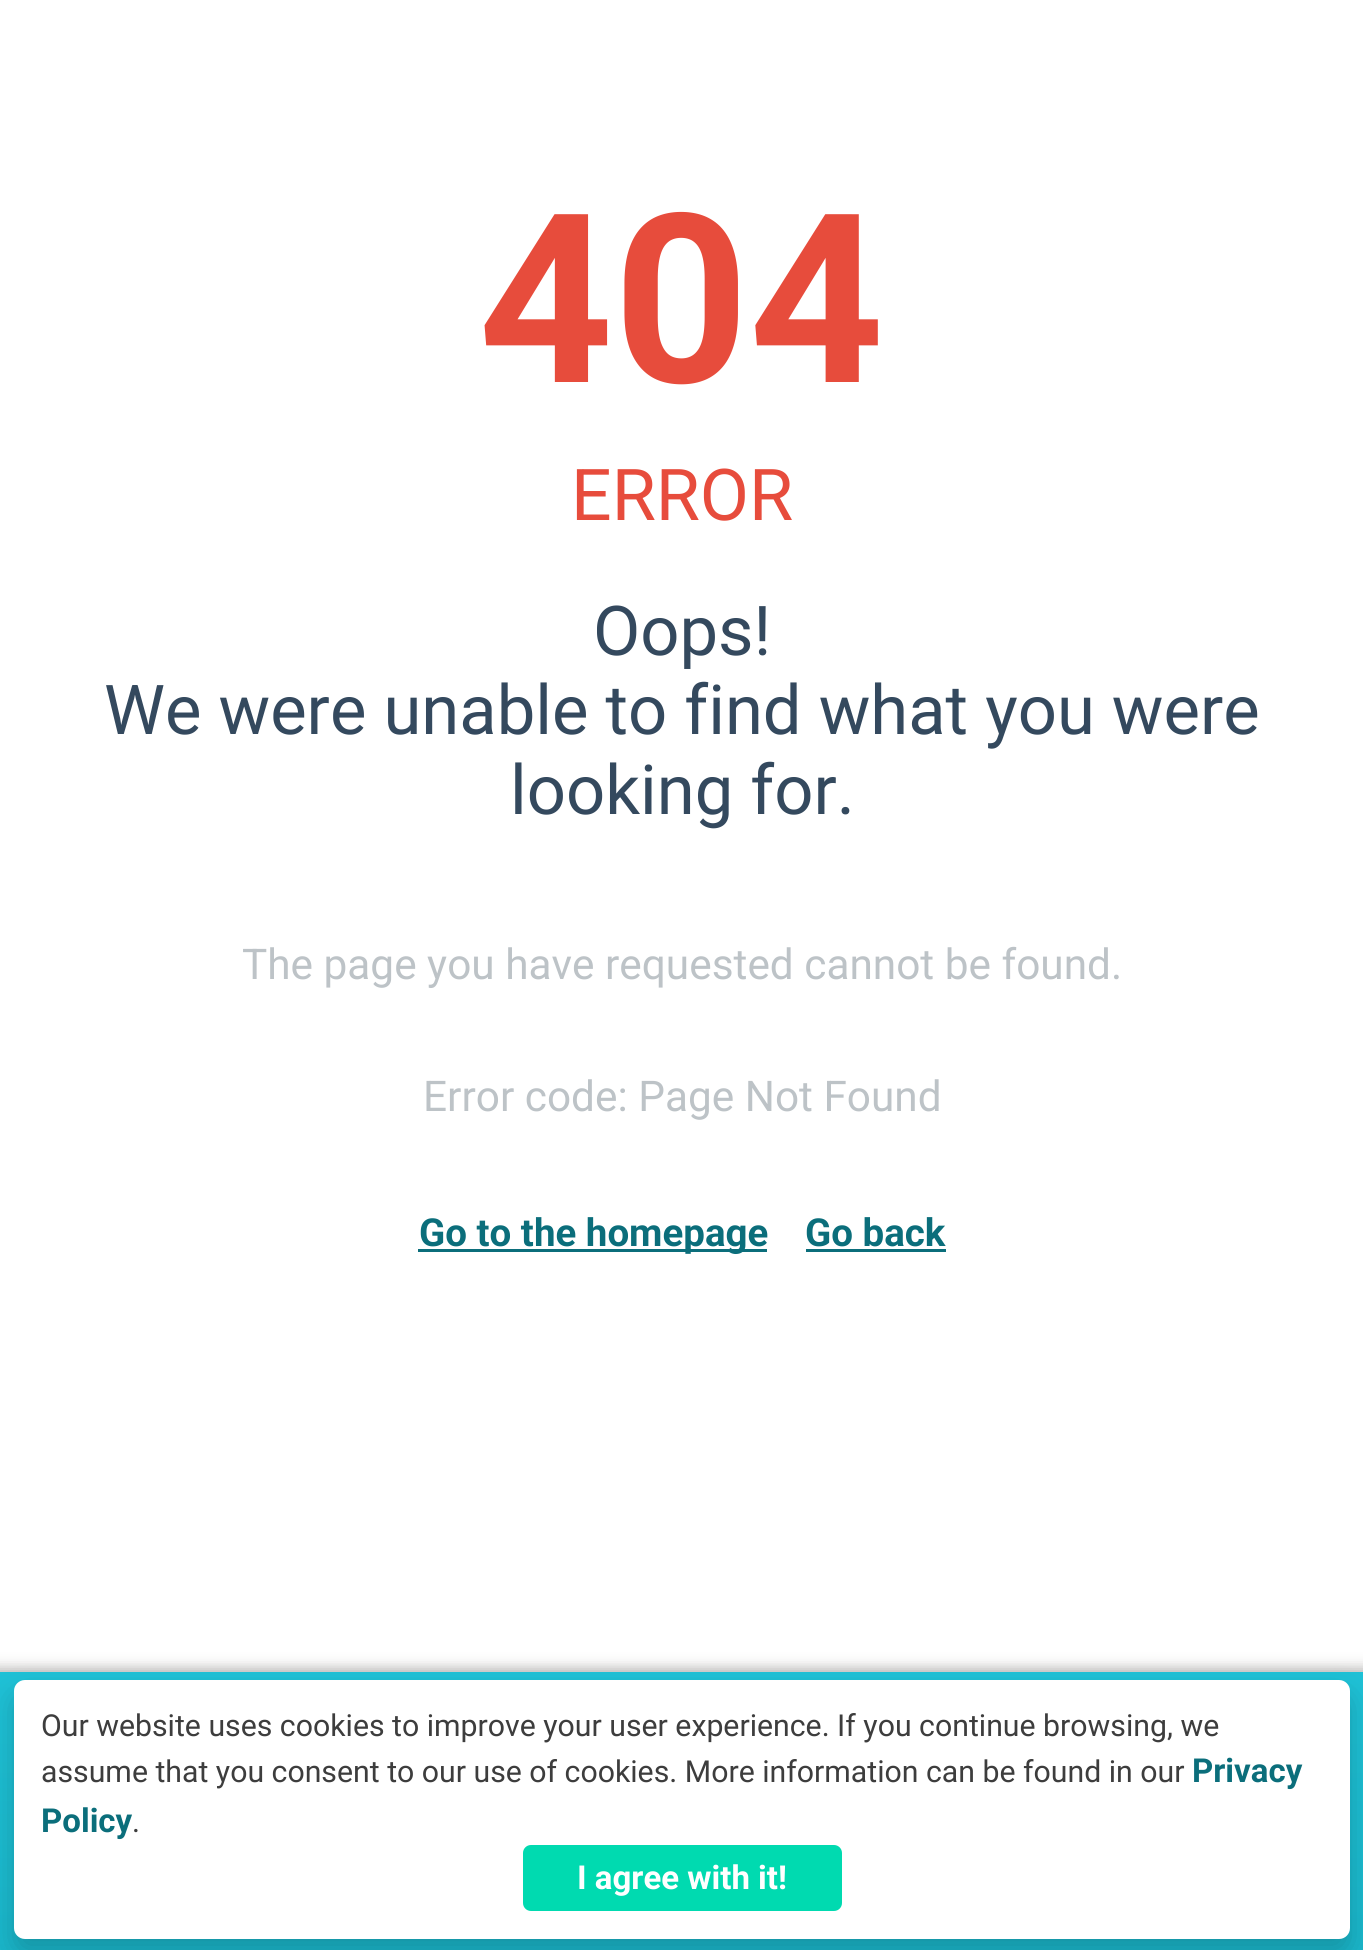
import math
import cairocffi as cairo

surface = cairo.ImageSurface(cairo.FORMAT_RGB24, 1363, 1950)
ctx = cairo.Context(surface)
options = cairo.FontOptions()
options.set_hint_metrics(cairo.HINT_METRICS_OFF)
options.set_hint_style(cairo.HINT_STYLE_NONE)
ctx.set_font_options(options)
ctx.set_miter_limit(4)


def rgb(r, g, b):
    ctx.set_source_rgb(r / 255, g / 255, b / 255)


def face(family, size, italic, bold):
    ctx.select_font_face(family, cairo.FONT_SLANT_ITALIC if italic else cairo.FONT_SLANT_NORMAL, cairo.FONT_WEIGHT_BOLD if bold else cairo.FONT_WEIGHT_NORMAL)
    ctx.set_font_size(size)


def label(x, y, s):
    ctx.move_to(x, y)
    ctx.show_text(s)


def rect(x, y, w, h):
    ctx.rectangle(x, y, w, h)
    ctx.fill()


def rrect(x, y, w, h, r):
    ctx.new_sub_path()
    for i, (u, v) in enumerate([(x + w - r, y + h - r), (x + r, y + h - r), (x + r, y + r), (x + w - r, y + r)]):
        ctx.arc(u, v, r, i * math.pi / 2, (i + 1) * math.pi / 2)
    ctx.close_path()


def soft_shadow(x, y, w, h, r, blur, alpha):
    ctx.push_group_with_content(cairo.CONTENT_ALPHA)
    ctx.set_operator(cairo.OPERATOR_SOURCE)
    for i in range(15, -16, -2):
        e = blur * i / 6
        if min(w, h) + 2 * e > 0:
            ctx.set_source_rgba(0, 0, 0, alpha * math.erfc((i - 1) / 8.5) / 2)
            rrect(x - e, y - e, w + 2 * e, h + 2 * e, max(0, min(r + e + blur * .6, min(w, h) / 2 + e)))
            ctx.fill()
    ctx.mask(ctx.pop_group())


rgb(255, 255, 255)
ctx.paint()
face('Roboto', 236, 0, 1)
rgb(231, 76, 60)
label(478, 382, '404')
face('Roboto', 71.5, 0, 0)
label(571, 520, 'ERROR')
face('Roboto', 68.75, 0, 0)
rgb(52, 73, 94)
label(593, 655, 'Oops!')
label(104, 734, 'We were unable to find what you were')
label(510, 814, 'looking for.')
face('Roboto', 42.35, 0, 0)
rgb(189, 195, 199)
label(242, 979, 'The page you have requested cannot be found.')
label(423, 1111, 'Error code: Page Not Found')
rgb(11, 110, 123)
rect(418, 1249, 349, 3)
face('Roboto', 38.5, 0, 1)
label(419, 1246, 'Go to the homepage')
label(805, 1246, 'Go back')
rect(806, 1249, 140, 3)
rgb(177, 175, 173)
soft_shadow(-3, 1669, 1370, 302, 0, 7, 1)
gradient = cairo.LinearGradient(682, 1672, 682, 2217)
gradient.add_color_stop_rgba(0, 0.118, 0.757, 0.839, 1)
gradient.add_color_stop_rgba(1, 0.086, 0.682, 0.757, 1)
ctx.set_source(gradient)
rect(0, 1672, 1363, 278)
rgb(0, 0, 0)
soft_shadow(14, 1694, 1336, 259, 11, 14, 0.2)
rgb(255, 255, 255)
rrect(14, 1680, 1336, 259, 11)
ctx.fill()
face('Roboto', 30.25, 0, 0)
rgb(61, 61, 61)
label(41, 1736, 'Our website uses cookies to improve your user experience. If you continue browsing, we')
label(41, 1782, 'assume that you consent to our use of cookies. More information can be found in our')
face('Roboto', 33, 0, 1)
rgb(11, 110, 123)
label(1192, 1782, 'Privacy')
label(41, 1832, 'Policy')
face('Roboto', 30.25, 0, 0)
rgb(61, 61, 61)
label(132, 1832, '.')
rgb(0, 218, 176)
rrect(523, 1845, 319, 66, 8)
ctx.fill()
face('Roboto', 33, 0, 1)
rgb(255, 255, 255)
label(577, 1889, 'I agree with it!')
surface.write_to_png('render.png')
